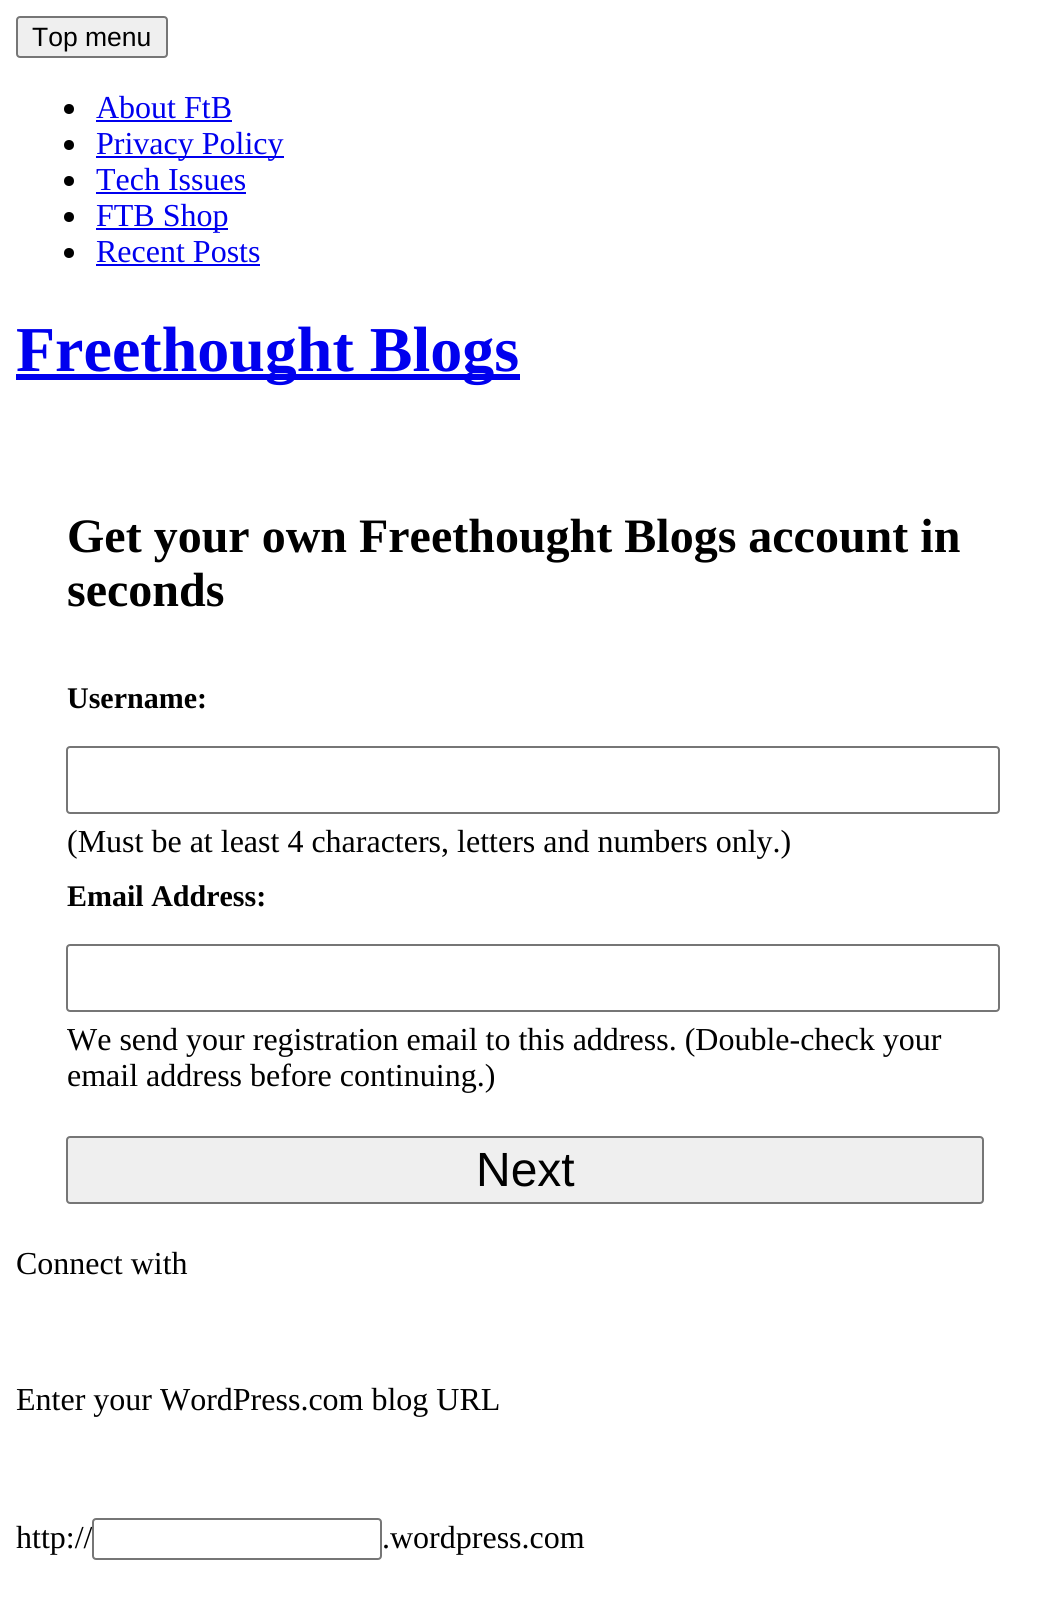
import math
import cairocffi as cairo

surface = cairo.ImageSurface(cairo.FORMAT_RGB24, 1050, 1607)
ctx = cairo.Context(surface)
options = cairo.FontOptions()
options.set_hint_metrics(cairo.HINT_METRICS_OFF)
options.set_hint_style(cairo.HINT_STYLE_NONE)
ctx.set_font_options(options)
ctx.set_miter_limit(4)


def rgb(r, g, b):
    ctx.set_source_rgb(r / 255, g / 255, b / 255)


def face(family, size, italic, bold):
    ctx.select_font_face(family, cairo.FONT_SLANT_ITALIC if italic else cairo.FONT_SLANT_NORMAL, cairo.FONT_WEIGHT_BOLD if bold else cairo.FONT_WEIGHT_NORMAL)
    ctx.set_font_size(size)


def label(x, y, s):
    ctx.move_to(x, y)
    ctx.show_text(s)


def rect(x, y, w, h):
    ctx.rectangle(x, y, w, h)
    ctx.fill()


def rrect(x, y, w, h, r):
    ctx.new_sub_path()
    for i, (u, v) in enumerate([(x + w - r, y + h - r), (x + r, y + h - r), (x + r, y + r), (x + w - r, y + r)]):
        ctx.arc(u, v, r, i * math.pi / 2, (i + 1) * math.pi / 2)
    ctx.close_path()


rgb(255, 255, 255)
ctx.paint()
rgb(239, 239, 239)
rrect(17, 17, 150, 40, 3)
ctx.fill_preserve()
rgb(118, 118, 118)
ctx.stroke()
face('Liberation Sans', 26.5, 0, 0)
rgb(0, 0, 0)
label(32, 46, 'Top menu')
ctx.new_path()
ctx.arc(69, 109, 5, 0, 2 * math.pi)
ctx.fill()
face('Liberation Serif', 32, 0, 0)
rgb(0, 0, 238)
label(96, 118, 'About FtB')
rect(96, 120, 136, 2)
rgb(0, 0, 0)
ctx.new_path()
ctx.arc(69, 145, 5, 0, 2 * math.pi)
ctx.fill()
rgb(0, 0, 238)
rect(96, 156, 188, 2)
label(96, 154, 'Privacy Policy')
rgb(0, 0, 0)
ctx.new_path()
ctx.arc(69, 181, 5, 0, 2 * math.pi)
ctx.fill()
rgb(0, 0, 238)
label(96, 190, 'Tech Issues')
rect(96, 192, 150, 2)
rgb(0, 0, 0)
ctx.new_path()
ctx.arc(69, 217, 5, 0, 2 * math.pi)
ctx.fill()
rgb(0, 0, 238)
rect(96, 228, 132, 2)
label(96, 226, 'FTB Shop')
rgb(0, 0, 0)
ctx.new_path()
ctx.arc(69, 253, 5, 0, 2 * math.pi)
ctx.fill()
rgb(0, 0, 238)
label(96, 262, 'Recent Posts')
rect(96, 264, 164, 2)
rect(16, 374, 504, 6)
face('Liberation Serif', 64, 0, 1)
label(16, 371, 'Freethought Blogs')
face('Liberation Serif', 48, 0, 1)
rgb(0, 0, 0)
label(67, 552, 'Get your own Freethought Blogs account in')
label(67, 606, 'seconds')
face('Liberation Serif', 30, 0, 1)
label(67, 708, 'Username:')
rrect(67, 747, 932, 66, 3)
rgb(118, 118, 118)
ctx.stroke()
face('Liberation Serif', 32, 0, 0)
rgb(0, 0, 0)
label(67, 852, '(Must be at least 4 characters, letters and numbers only.)')
face('Liberation Serif', 30, 0, 1)
label(67, 906, 'Email Address:')
rrect(67, 945, 932, 66, 3)
rgb(118, 118, 118)
ctx.stroke()
face('Liberation Serif', 32, 0, 0)
rgb(0, 0, 0)
label(67, 1050, 'We send your registration email to this address. (Double-check your')
label(67, 1086, 'email address before continuing.)')
rgb(239, 239, 239)
rrect(67, 1137, 916, 66, 3)
ctx.fill_preserve()
rgb(118, 118, 118)
ctx.stroke()
face('Liberation Sans', 48, 0, 0)
rgb(0, 0, 0)
label(476, 1186, 'Next')
face('Liberation Serif', 32, 0, 0)
label(16, 1274, 'Connect with')
label(16, 1410, 'Enter your WordPress.com blog URL')
label(16, 1548, 'http://')
rgb(255, 255, 255)
rrect(93, 1519, 288, 40, 3)
ctx.fill_preserve()
rgb(118, 118, 118)
ctx.stroke()
rgb(0, 0, 0)
label(382, 1548, '.wordpress.com')
surface.write_to_png('render.png')
